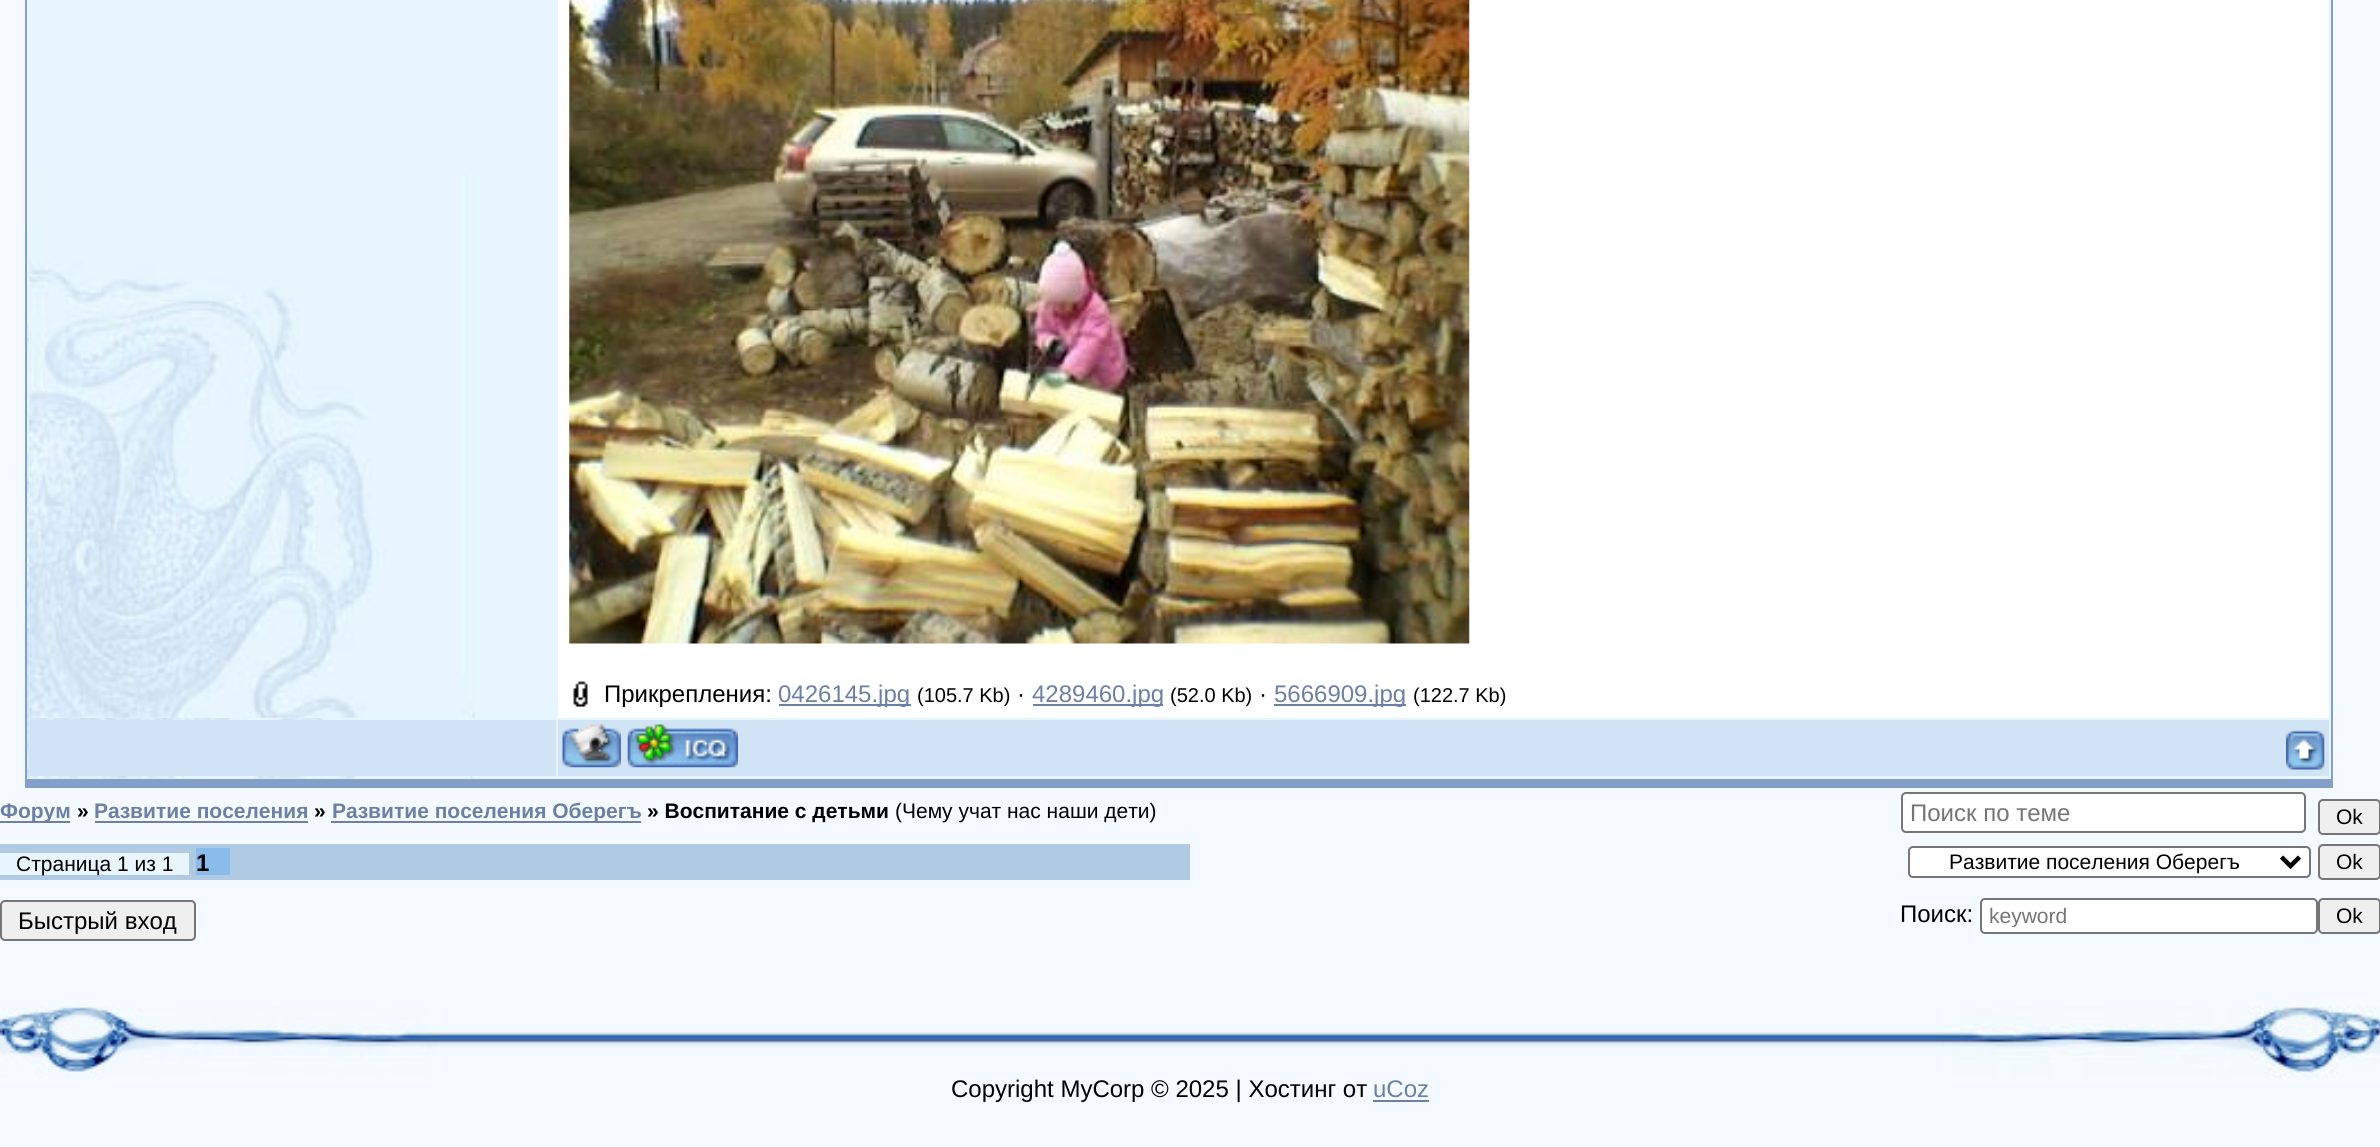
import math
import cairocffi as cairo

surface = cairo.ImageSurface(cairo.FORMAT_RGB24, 2380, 1147)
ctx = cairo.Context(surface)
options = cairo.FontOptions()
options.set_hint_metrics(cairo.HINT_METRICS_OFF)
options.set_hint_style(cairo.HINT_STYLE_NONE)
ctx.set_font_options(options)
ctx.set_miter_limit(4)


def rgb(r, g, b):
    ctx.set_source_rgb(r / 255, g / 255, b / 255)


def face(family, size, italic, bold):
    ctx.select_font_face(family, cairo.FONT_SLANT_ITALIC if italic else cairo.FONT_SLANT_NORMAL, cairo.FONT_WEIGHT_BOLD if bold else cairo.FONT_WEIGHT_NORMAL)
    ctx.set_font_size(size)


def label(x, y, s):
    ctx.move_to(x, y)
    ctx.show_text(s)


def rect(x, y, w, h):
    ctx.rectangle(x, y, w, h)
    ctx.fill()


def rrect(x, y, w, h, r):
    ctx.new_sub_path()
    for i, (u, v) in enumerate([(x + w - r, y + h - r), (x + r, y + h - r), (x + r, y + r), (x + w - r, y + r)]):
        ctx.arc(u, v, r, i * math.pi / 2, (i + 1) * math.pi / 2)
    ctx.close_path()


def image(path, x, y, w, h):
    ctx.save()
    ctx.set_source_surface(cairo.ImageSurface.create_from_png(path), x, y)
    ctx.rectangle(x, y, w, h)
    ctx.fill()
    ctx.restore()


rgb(244, 250, 255)
ctx.paint()
rgb(132, 159, 202)
rect(25, 0, 2308, 788)
rgb(231, 245, 255)
rect(27, 0, 2304, 779)
image('image0.png', 27, 232, 446, 547)
rect(29, 232, 443, 486)
image('image1.png', 29, 171, 446, 547)
rgb(255, 255, 255)
rect(558, 0, 1771, 718)
image('image2.png', 569, 0, 901, 644)
image('image3.png', 573, 681, 15, 26)
face('Liberation Sans', 24, 0, 0)
rgb(0, 0, 0)
label(604, 702, 'Прикрепления:')
rgb(107, 128, 163)
rect(779, 704, 132, 2)
label(778, 702, '0426145.jpg')
face('Liberation Sans', 20, 0, 0)
rgb(0, 0, 0)
label(917, 702, '(105.7 Kb)')
face('Liberation Sans', 24, 0, 0)
label(1017, 702, '·')
rgb(107, 128, 163)
rect(1033, 704, 130, 2)
label(1032, 702, '4289460.jpg')
face('Liberation Sans', 20, 0, 0)
rgb(0, 0, 0)
label(1170, 702, '(52.0 Kb)')
face('Liberation Sans', 24, 0, 0)
label(1259, 702, '·')
rgb(107, 128, 163)
rect(1274, 704, 132, 2)
label(1274, 702, '5666909.jpg')
face('Liberation Sans', 20, 0, 0)
rgb(0, 0, 0)
label(1413, 702, '(122.7 Kb)')
rgb(209, 228, 245)
rect(29, 720, 527, 56)
rect(558, 720, 1771, 56)
image('image4.png', 562, 724, 59, 44)
image('image5.png', 627, 724, 111, 44)
image('image6.png', 2286, 730, 39, 40)
rgb(107, 128, 163)
rect(0, 821, 70, 2)
face('Liberation Sans', 21, 0, 1)
label(0, 818, 'Форум')
rgb(0, 0, 0)
label(77, 818, '»')
rgb(107, 128, 163)
label(94, 818, 'Развитие поселения')
rect(95, 821, 213, 2)
rgb(0, 0, 0)
label(314, 818, '»')
rgb(107, 128, 163)
rect(331, 821, 310, 2)
label(332, 818, 'Развитие поселения Оберегъ')
rgb(0, 0, 0)
label(647, 818, '» Воспитание с детьми')
face('Liberation Sans', 21, 0, 0)
label(895, 818, '(Чему учат нас наши дети)')
rgb(255, 255, 255)
rrect(1902, 793, 403, 39, 4)
ctx.fill_preserve()
rgb(118, 118, 118)
ctx.stroke()
face('Liberation Sans', 24, 0, 0)
rgb(117, 117, 117)
label(1910, 821, 'Поиск по теме')
rgb(239, 239, 239)
rrect(2319, 800, 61, 34, 4)
ctx.fill_preserve()
rgb(118, 118, 118)
ctx.stroke()
face('Liberation Sans', 21, 0, 0)
rgb(0, 0, 0)
label(2336, 824, 'Ok')
rgb(176, 202, 228)
rect(0, 844, 1190, 36)
rgb(232, 245, 254)
rect(0, 853, 189, 22)
rgb(0, 0, 0)
label(16, 871, 'Страница 1 из 1')
rgb(138, 188, 235)
rect(196, 848, 34, 27)
face('Liberation Sans', 24, 0, 1)
rgb(0, 0, 0)
label(196, 871, '1')
rgb(255, 255, 255)
rrect(1909, 847, 401, 30, 4)
ctx.fill_preserve()
rgb(118, 118, 118)
ctx.stroke()
ctx.new_path()
ctx.move_to(2281.5, 857)
ctx.line_to(2290.5, 866)
ctx.line_to(2299.5, 857)
rgb(0, 0, 0)
ctx.set_line_width(4.5)
ctx.stroke()
face('Liberation Sans', 21, 0, 0)
label(1949, 869, 'Развитие поселения Оберегъ')
rgb(239, 239, 239)
rrect(2319, 845, 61, 34, 4)
ctx.fill_preserve()
rgb(118, 118, 118)
ctx.set_line_width(2)
ctx.stroke()
rgb(0, 0, 0)
label(2336, 869, 'Ok')
rgb(239, 239, 239)
rrect(1, 901, 194, 39, 4)
ctx.fill_preserve()
rgb(118, 118, 118)
ctx.stroke()
face('Liberation Sans', 24, 0, 0)
rgb(0, 0, 0)
label(18, 929, 'Быстрый вход')
label(1900, 922, 'Поиск:')
rgb(255, 255, 255)
rrect(1981, 899, 336, 34, 4)
ctx.fill_preserve()
rgb(118, 118, 118)
ctx.stroke()
ctx.save()
ctx.rectangle(1989, 905, 320, 22)
ctx.clip()
face('Liberation Sans', 21, 0, 0)
rgb(117, 117, 117)
label(1989, 923, 'keyword')
ctx.restore()
rgb(239, 239, 239)
rrect(2319, 899, 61, 34, 4)
ctx.fill_preserve()
rgb(118, 118, 118)
ctx.stroke()
face('Liberation Sans', 21, 0, 0)
rgb(0, 0, 0)
label(2336, 923, 'Ok')
image('image7.png', 438, 1032, 1504, 15)
image('image8.png', 0, 1006, 438, 72)
image('image9.png', 1942, 1005, 438, 73)
face('Liberation Sans', 24, 0, 0)
label(951, 1097, 'Copyright MyCorp © 2025 | Хостинг от')
rgb(107, 128, 163)
label(1373, 1097, 'uCoz')
rect(1373, 1100, 56, 2)
surface.write_to_png('render.png')
